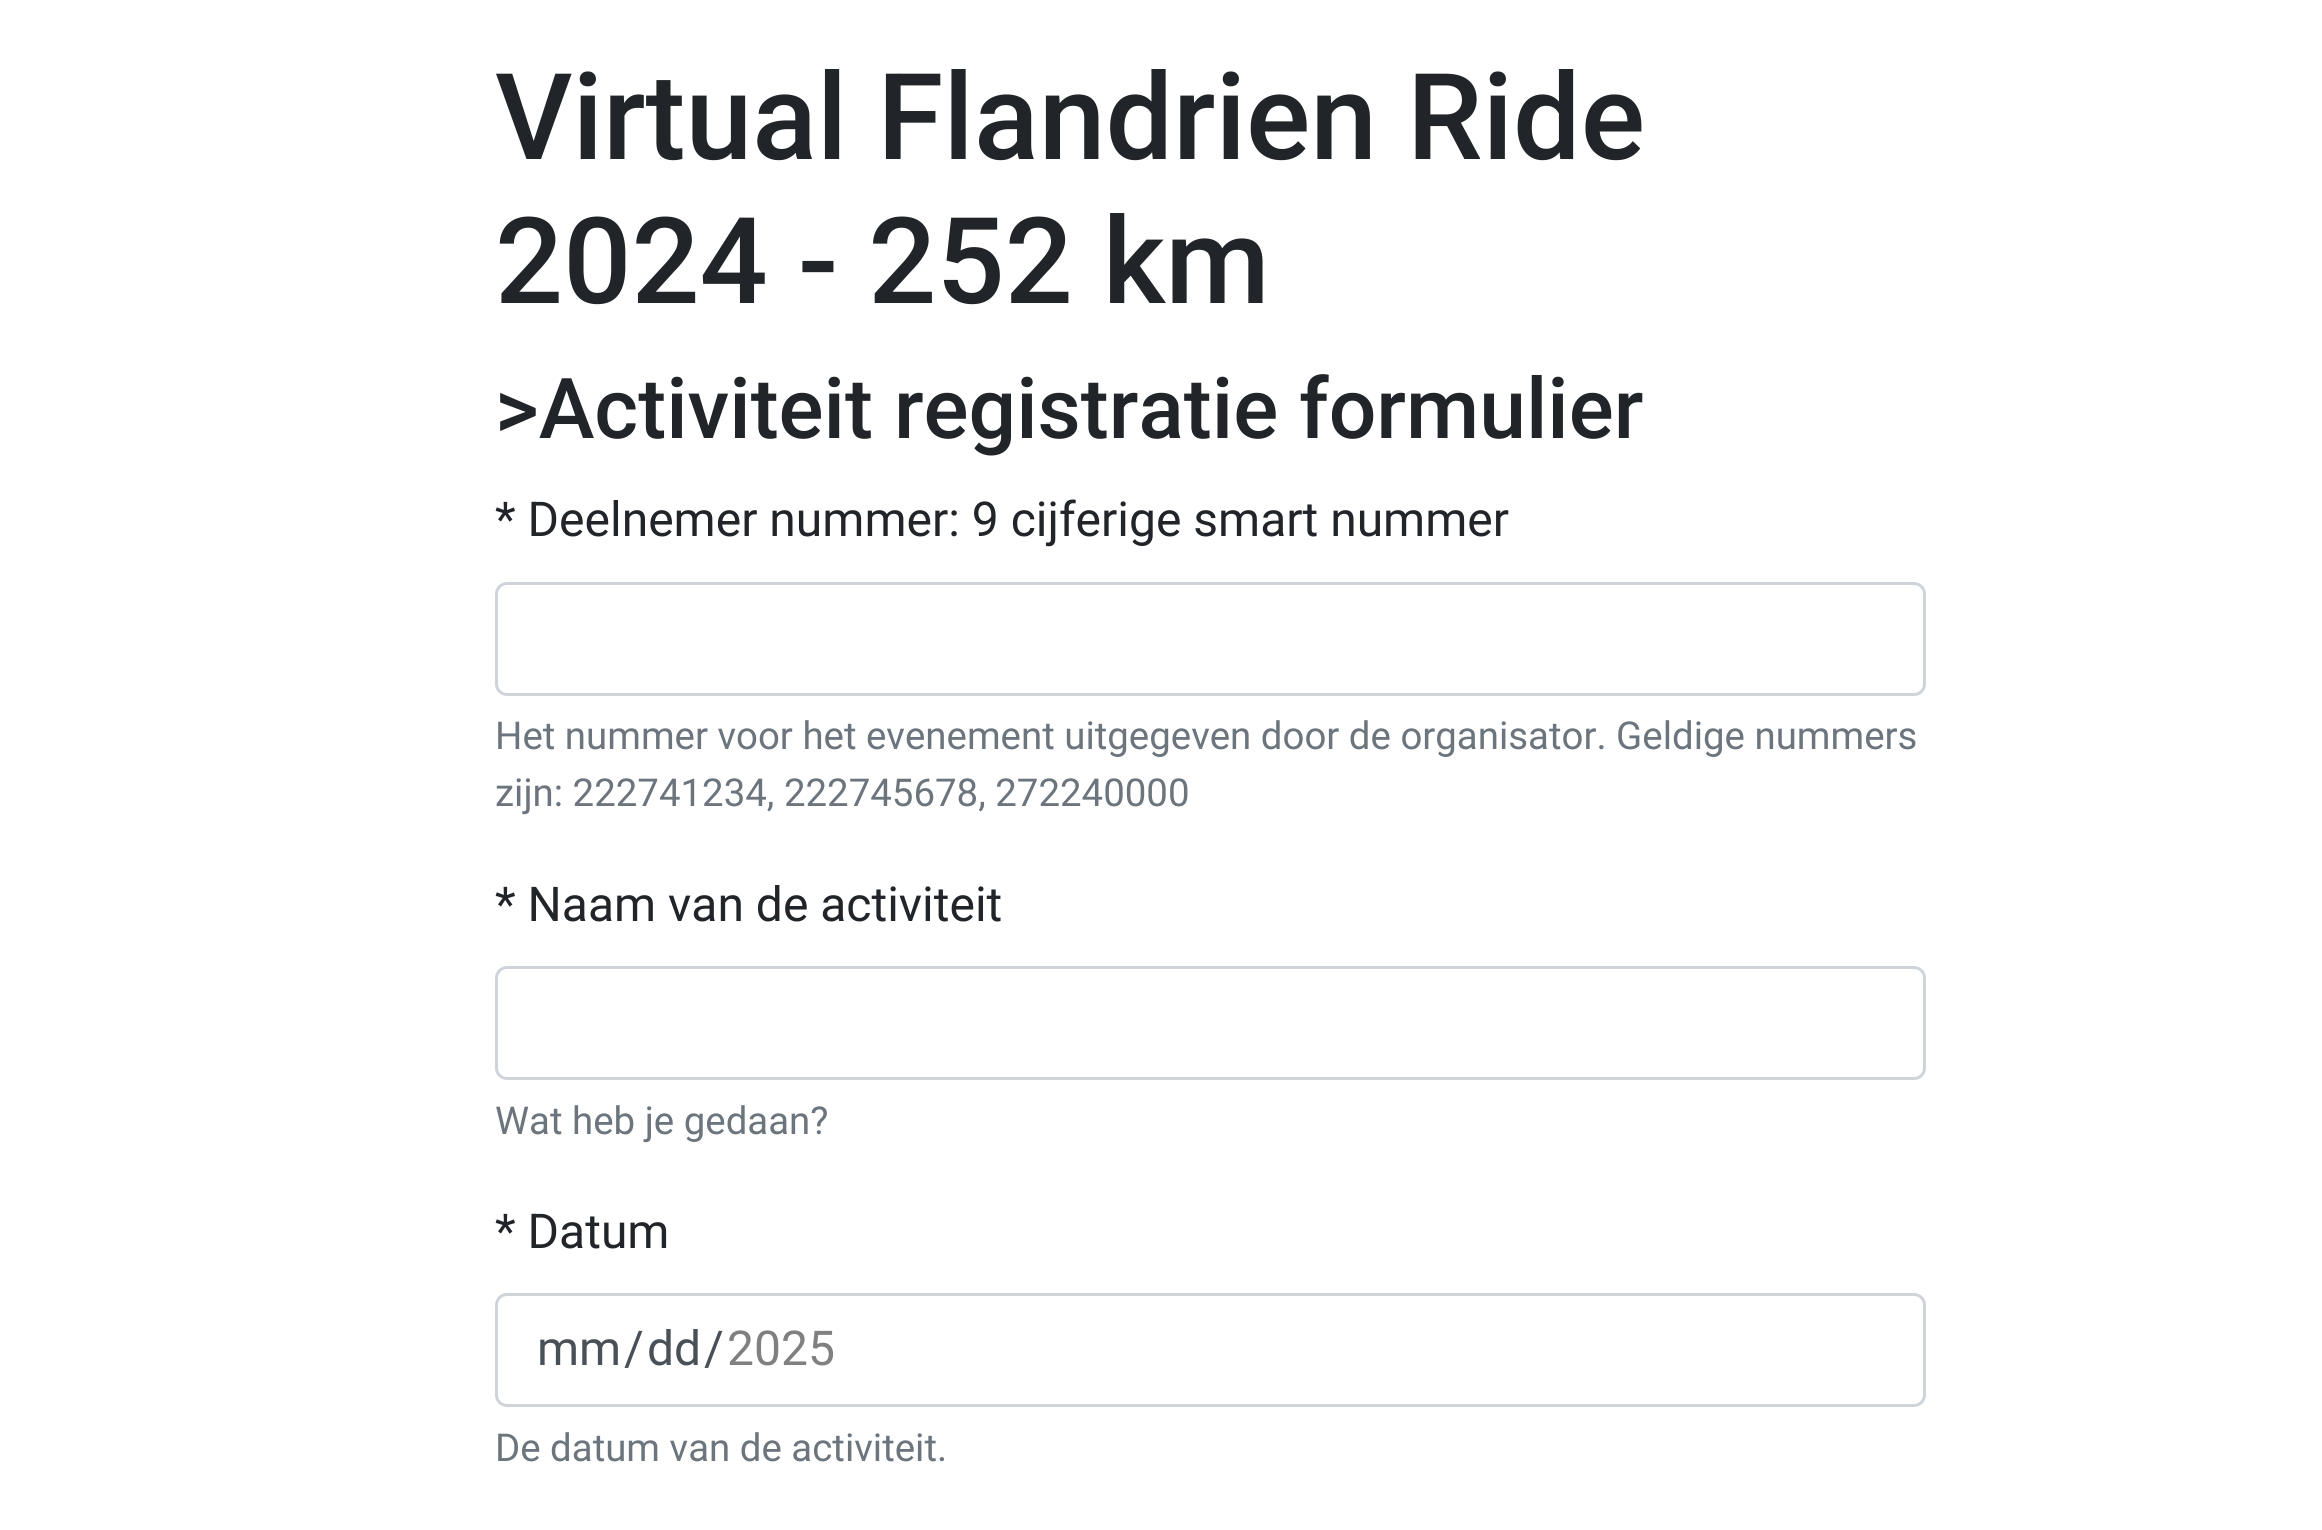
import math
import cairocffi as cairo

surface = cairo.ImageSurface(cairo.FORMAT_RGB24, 2322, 1530)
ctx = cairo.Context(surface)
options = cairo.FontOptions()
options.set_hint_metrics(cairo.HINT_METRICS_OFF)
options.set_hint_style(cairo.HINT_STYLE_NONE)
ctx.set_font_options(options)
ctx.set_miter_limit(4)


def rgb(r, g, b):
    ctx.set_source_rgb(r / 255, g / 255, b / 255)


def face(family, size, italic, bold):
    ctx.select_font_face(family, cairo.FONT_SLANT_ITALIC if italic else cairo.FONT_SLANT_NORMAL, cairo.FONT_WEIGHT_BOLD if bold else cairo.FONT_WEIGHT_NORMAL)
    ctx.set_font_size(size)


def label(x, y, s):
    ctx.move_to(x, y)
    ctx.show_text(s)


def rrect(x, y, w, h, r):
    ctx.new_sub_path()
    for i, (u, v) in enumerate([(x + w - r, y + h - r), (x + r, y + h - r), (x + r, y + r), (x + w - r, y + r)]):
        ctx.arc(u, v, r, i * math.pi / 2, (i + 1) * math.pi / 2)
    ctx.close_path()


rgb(255, 255, 255)
ctx.paint()
face('Roboto Medium', 120, 0, 0)
rgb(33, 37, 41)
label(495, 159, 'Virtual Flandrien Ride')
label(495, 303, '2024 - 252 km')
face('Roboto Medium', 84, 0, 0)
label(495, 438, '>Activiteit registratie formulier')
face('Roboto', 48, 0, 0)
label(495, 536, '* Deelnemer nummer: 9 cijferige smart nummer')
rrect(496.5, 583.5, 1428, 111, 10.5)
rgb(206, 212, 218)
ctx.set_line_width(3)
ctx.stroke()
face('Roboto', 38.4, 0, 0)
rgb(108, 117, 125)
label(495, 749, 'Het nummer voor het evenement uitgegeven door de organisator. Geldige nummers')
label(495, 806, 'zijn: 222741234, 222745678, 272240000')
face('Roboto', 48, 0, 0)
rgb(33, 37, 41)
label(495, 921, '* Naam van de activiteit')
rrect(496.5, 967.5, 1428, 111, 10.5)
rgb(206, 212, 218)
ctx.stroke()
face('Roboto', 38.4, 0, 0)
rgb(108, 117, 125)
label(495, 1134, 'Wat heb je gedaan?')
face('Roboto', 48, 0, 0)
rgb(33, 37, 41)
label(495, 1248, '* Datum')
rrect(496.5, 1294.5, 1428, 111, 10.5)
rgb(206, 212, 218)
ctx.stroke()
rgb(73, 80, 87)
label(537, 1365, 'mm')
label(624, 1365, '/')
label(647, 1365, 'dd')
label(704, 1365, '/')
rgb(128, 128, 128)
label(727, 1365, '2025')
face('Roboto', 38.4, 0, 0)
rgb(108, 117, 125)
label(495, 1461, 'De datum van de activiteit.')
surface.write_to_png('render.png')
